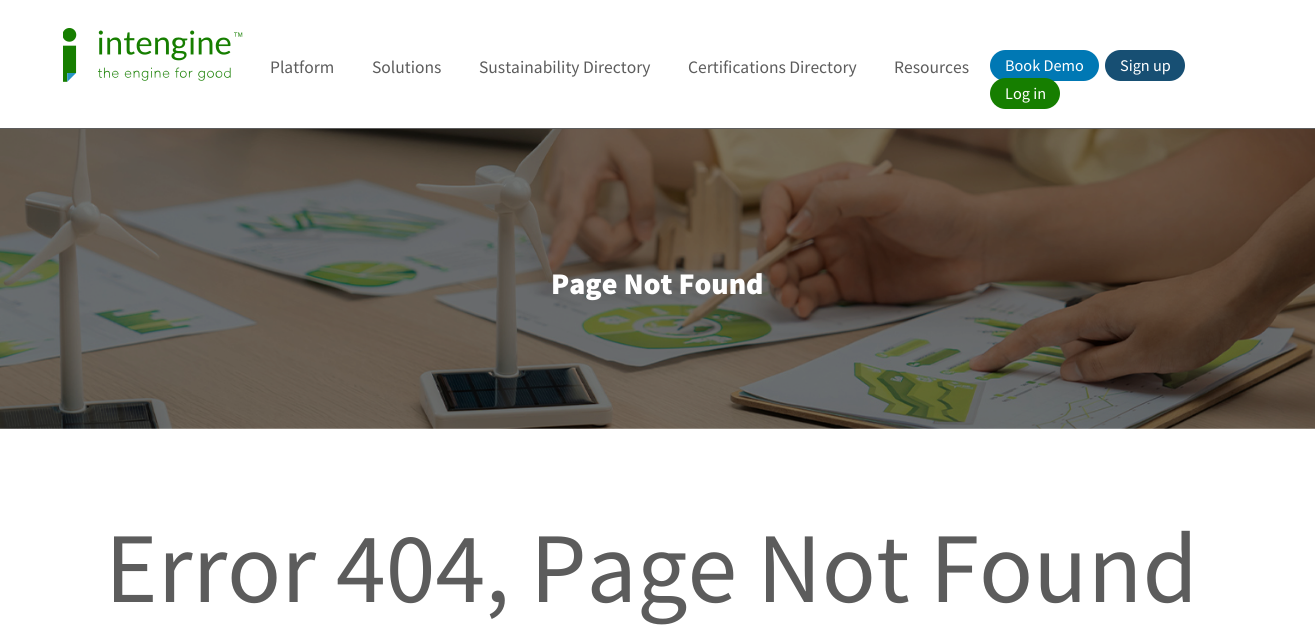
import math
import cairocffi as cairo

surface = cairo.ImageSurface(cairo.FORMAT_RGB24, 1315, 644)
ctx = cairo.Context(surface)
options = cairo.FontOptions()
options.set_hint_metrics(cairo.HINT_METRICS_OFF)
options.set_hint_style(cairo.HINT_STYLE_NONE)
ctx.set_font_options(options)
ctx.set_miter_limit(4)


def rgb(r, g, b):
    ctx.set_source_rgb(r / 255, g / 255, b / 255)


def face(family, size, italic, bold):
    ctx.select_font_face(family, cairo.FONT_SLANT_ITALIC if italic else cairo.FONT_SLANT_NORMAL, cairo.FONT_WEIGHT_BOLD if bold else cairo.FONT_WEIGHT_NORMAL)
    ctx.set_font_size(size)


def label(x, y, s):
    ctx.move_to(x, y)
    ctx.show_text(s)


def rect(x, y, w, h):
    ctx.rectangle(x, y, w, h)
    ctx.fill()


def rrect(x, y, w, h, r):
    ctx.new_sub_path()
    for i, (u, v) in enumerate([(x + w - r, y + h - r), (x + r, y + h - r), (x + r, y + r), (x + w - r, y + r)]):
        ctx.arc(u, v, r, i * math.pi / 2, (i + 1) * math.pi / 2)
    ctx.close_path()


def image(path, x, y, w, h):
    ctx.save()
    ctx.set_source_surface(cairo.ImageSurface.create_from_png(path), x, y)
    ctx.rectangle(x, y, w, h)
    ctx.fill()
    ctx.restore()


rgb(255, 255, 255)
ctx.paint()
rgb(92, 92, 92)
rect(0, 128, 1315, 1)
image('image0.png', 63, 28, 180, 54)
face('Source Sans Pro', 17.5, 0, 0)
label(270, 73, 'Platform')
label(372, 73, 'Solutions')
label(479, 73, 'Sustainability Directory')
label(688, 73, 'Certifications Directory')
label(894, 73, 'Resources')
rgb(0, 120, 180)
rrect(990, 50, 109, 31, 15.5)
ctx.fill()
face('Source Sans Pro', 16.25, 0, 0)
rgb(255, 255, 255)
label(1005, 71, 'Book Demo')
rgb(23, 79, 115)
rrect(1105, 50, 80, 31, 15.5)
ctx.fill()
rgb(255, 255, 255)
label(1120, 71, 'Sign up')
rgb(22, 126, 0)
rrect(990, 78, 70, 31, 15.5)
ctx.fill()
rgb(255, 255, 255)
label(1005, 99, 'Log in')
image('image1.png', 0, 129, 1315, 300)
face('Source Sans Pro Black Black', 30, 0, 0)
label(551, 294, 'Page Not Found')
face('Source Sans Pro', 100, 0, 0)
rgb(92, 92, 92)
label(105, 602, 'Error 404, Page Not Found')
surface.write_to_png('render.png')
